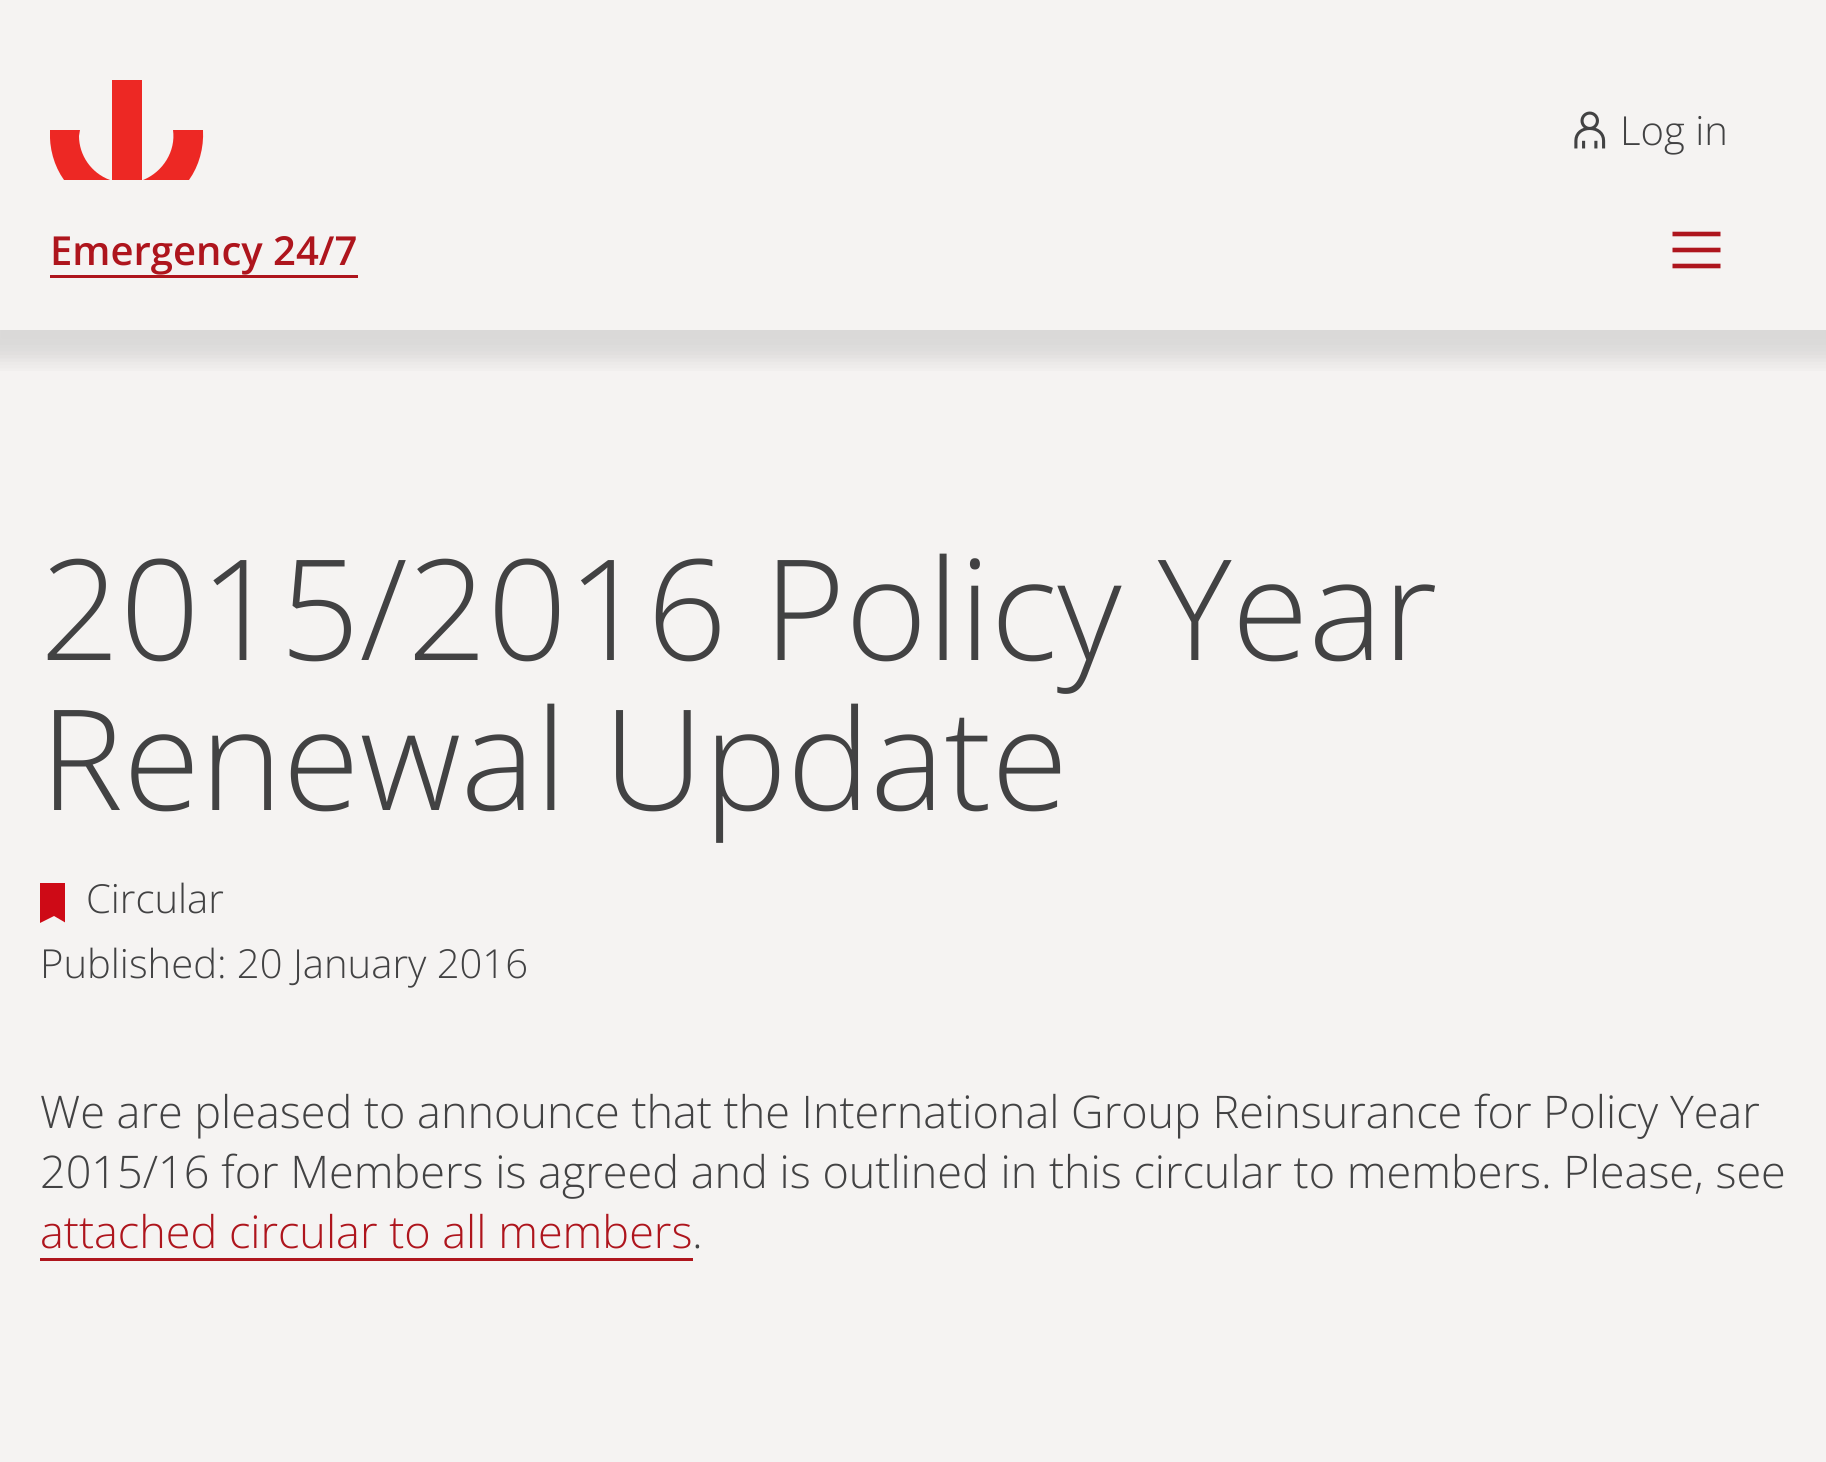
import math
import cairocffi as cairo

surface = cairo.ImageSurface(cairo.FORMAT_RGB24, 1826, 1462)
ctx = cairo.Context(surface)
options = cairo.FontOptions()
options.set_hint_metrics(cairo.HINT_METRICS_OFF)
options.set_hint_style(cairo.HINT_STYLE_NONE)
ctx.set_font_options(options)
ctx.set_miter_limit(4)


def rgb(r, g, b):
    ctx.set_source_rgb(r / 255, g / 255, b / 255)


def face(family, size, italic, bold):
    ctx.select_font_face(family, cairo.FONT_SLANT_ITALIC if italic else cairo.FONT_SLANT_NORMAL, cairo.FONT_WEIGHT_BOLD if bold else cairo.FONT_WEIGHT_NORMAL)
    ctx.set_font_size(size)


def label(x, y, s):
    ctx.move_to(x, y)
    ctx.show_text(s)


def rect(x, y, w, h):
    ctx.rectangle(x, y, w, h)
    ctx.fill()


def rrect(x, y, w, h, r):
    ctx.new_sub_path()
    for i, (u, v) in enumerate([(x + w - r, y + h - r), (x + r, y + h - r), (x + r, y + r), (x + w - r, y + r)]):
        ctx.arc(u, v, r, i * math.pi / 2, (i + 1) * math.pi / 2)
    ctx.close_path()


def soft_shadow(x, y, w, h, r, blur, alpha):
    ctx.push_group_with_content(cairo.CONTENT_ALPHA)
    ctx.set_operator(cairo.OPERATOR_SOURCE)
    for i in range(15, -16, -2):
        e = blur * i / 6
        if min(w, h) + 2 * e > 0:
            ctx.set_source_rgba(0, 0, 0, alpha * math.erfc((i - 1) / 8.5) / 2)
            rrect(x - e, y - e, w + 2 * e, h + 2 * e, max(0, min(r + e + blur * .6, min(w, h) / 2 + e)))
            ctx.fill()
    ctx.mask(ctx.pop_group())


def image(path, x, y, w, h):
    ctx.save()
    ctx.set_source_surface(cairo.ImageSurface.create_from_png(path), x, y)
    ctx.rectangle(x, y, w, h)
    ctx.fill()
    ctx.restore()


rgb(245, 243, 242)
ctx.paint()
ctx.save()
ctx.rectangle(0, 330, 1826, 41)
ctx.clip()
rgb(66, 66, 67)
soft_shadow(-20, -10, 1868, 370, 0, 10, 0.15)
ctx.restore()
rgb(237, 40, 36)
ctx.new_path()
ctx.move_to(203, 130)
ctx.line_to(173, 130)
ctx.curve_to(176, 151, 163, 172, 143, 180)
ctx.line_to(189, 180)
ctx.curve_to(199, 166, 204, 148, 203, 130)
ctx.close_path()
ctx.fill()
ctx.save()
ctx.rectangle(50, 80, 153, 100)
ctx.clip()
ctx.new_path()
ctx.move_to(79, 136)
ctx.line_to(80, 130)
ctx.line_to(50, 130)
ctx.curve_to(49, 148, 54, 166, 64, 180)
ctx.line_to(110, 180)
ctx.curve_to(91, 173, 79, 155, 79, 136)
ctx.close_path()
ctx.fill()
ctx.restore()
ctx.new_path()
ctx.move_to(112, 92)
ctx.line_to(112, 180)
ctx.line_to(142, 180)
ctx.line_to(142, 80)
ctx.line_to(112, 80)
ctx.close_path()
ctx.fill()
image('image0.png', 1574, 111, 32, 38)
face('Open Sans Light', 40, 0, 0)
rgb(66, 66, 67)
label(1620, 145, 'Log in')
face('Open Sans SemiBold', 40, 0, 0)
rgb(174, 21, 29)
label(50, 265, 'Emergency 24/7')
rect(50, 275, 308, 3)
ctx.new_path()
ctx.move_to(1672.5, 266)
ctx.line_to(1720.5, 266)
ctx.move_to(1672.5, 234)
ctx.line_to(1720.5, 234)
ctx.move_to(1672.5, 250)
ctx.line_to(1720.5, 250)
ctx.set_line_width(4.6)
ctx.stroke()
face('Open Sans Light', 140, 0, 0)
rgb(66, 66, 67)
label(40, 660, '2015/2016 Policy Year')
label(40, 810, 'Renewal Update')
ctx.save()
ctx.rectangle(40, 883, 25, 40)
ctx.clip()
rgb(206, 10, 22)
ctx.new_path()
ctx.move_to(40, 883)
ctx.line_to(66, 883)
ctx.line_to(66, 923)
ctx.line_to(54, 916)
ctx.line_to(40, 923)
ctx.close_path()
ctx.fill()
ctx.restore()
face('Open Sans Light', 40, 0, 0)
label(86, 913, 'Circular')
label(40, 978, 'Published: 20 January 2016')
face('Open Sans Light', 45, 0, 0)
label(40, 1128, 'We are pleased to announce that the International Group Reinsurance for Policy Year')
label(40, 1188, '2015/16 for Members is agreed and is outlined in this circular to members. Please, see')
rgb(174, 21, 29)
label(40, 1248, 'attached circular to all members')
rect(40, 1258, 653, 3)
rgb(66, 66, 67)
label(692, 1248, '.')
surface.write_to_png('render.png')
